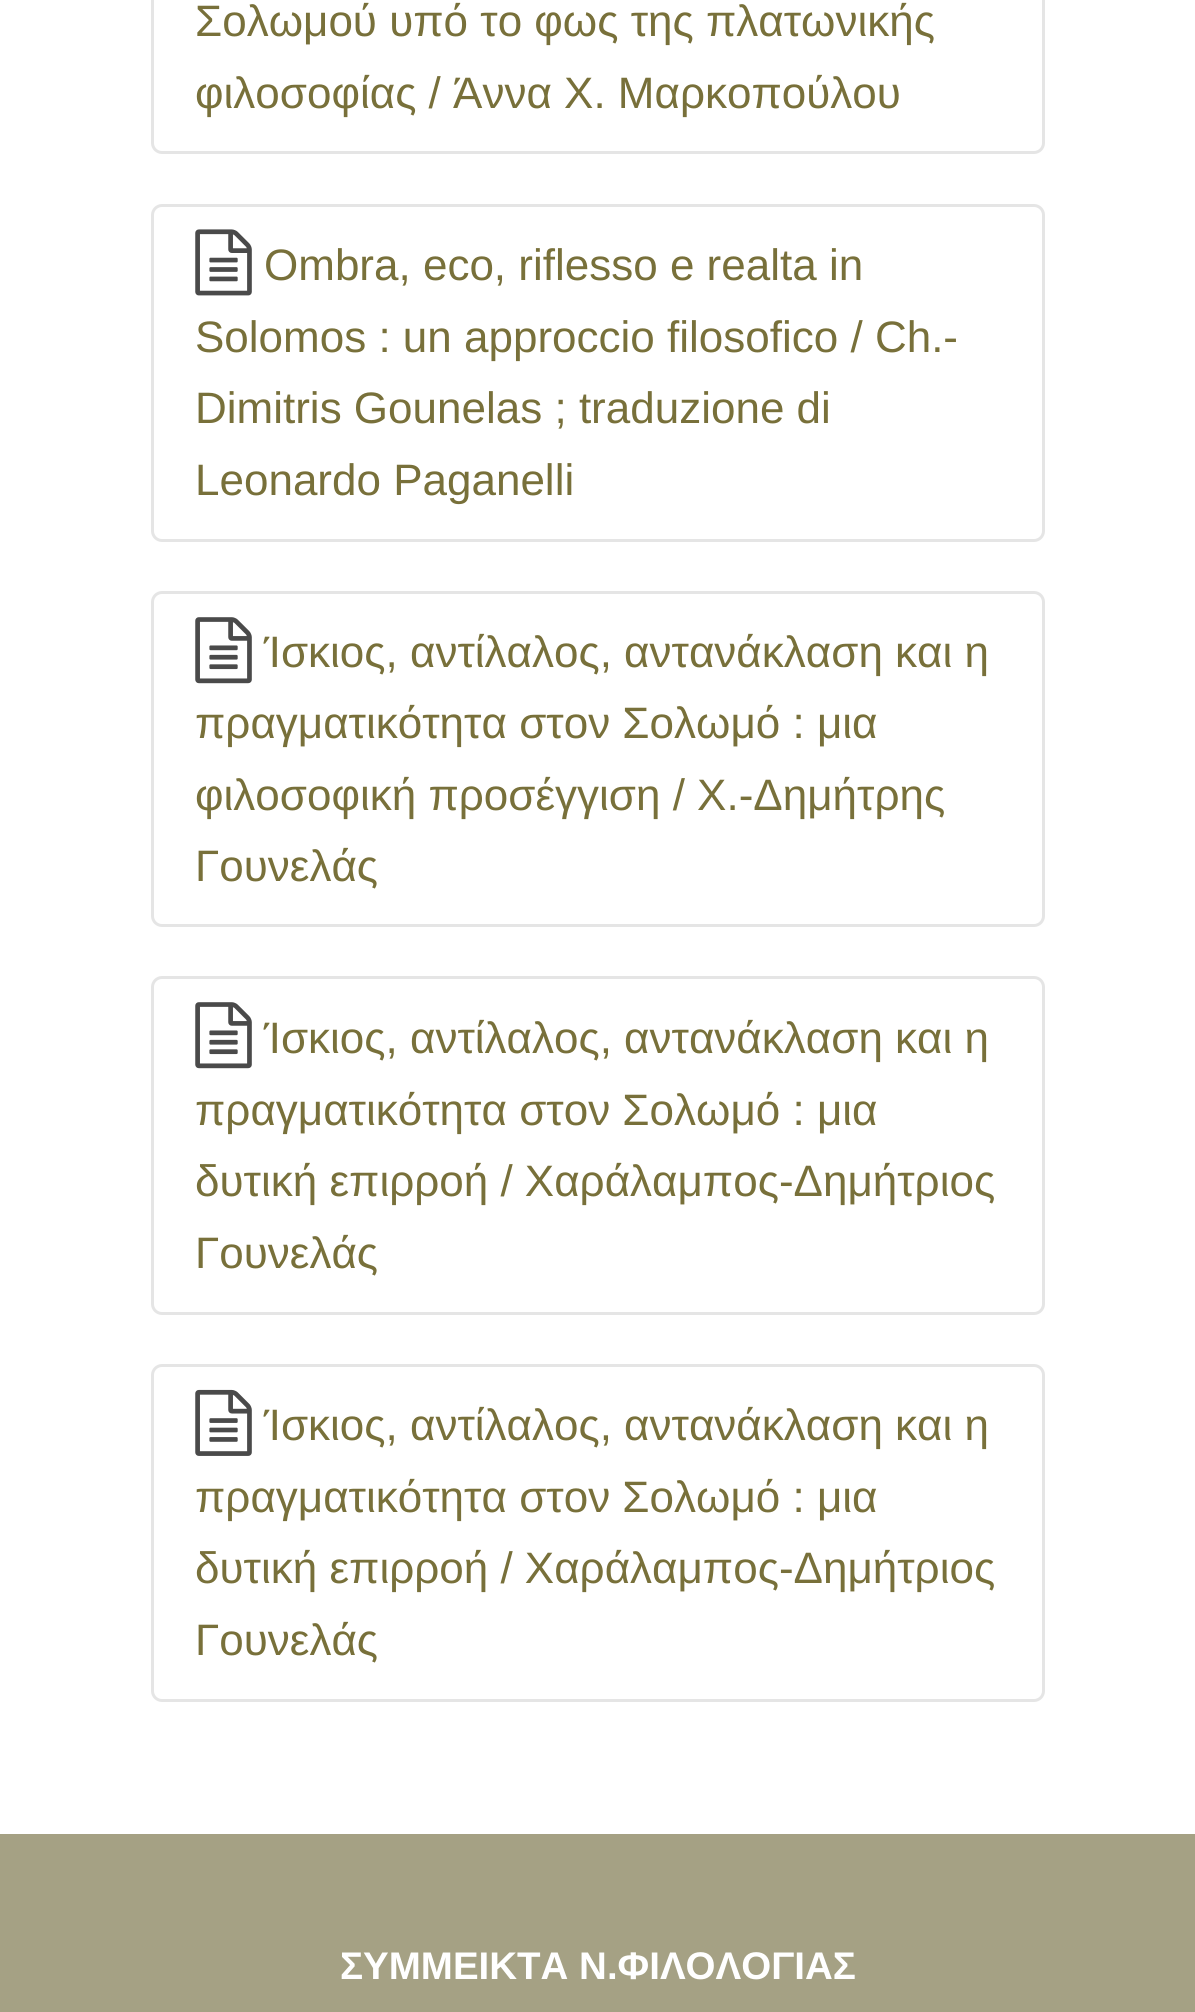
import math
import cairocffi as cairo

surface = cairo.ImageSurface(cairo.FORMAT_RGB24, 1195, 2012)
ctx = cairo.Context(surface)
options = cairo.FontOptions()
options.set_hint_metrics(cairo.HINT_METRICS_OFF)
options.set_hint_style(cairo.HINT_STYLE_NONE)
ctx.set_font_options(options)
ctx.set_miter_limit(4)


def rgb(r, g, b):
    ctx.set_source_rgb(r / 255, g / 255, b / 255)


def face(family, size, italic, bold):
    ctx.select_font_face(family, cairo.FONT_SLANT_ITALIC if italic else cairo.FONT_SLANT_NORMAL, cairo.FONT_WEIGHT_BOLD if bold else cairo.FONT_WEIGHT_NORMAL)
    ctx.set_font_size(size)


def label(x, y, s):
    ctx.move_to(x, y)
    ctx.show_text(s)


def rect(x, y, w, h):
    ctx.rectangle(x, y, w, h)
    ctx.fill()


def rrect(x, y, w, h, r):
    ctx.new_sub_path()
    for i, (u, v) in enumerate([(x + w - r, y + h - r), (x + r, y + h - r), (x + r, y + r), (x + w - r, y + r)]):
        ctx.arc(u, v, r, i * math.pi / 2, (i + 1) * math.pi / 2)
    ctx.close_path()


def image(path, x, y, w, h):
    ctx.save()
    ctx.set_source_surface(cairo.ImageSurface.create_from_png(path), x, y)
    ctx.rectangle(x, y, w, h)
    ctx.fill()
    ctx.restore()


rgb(255, 255, 255)
ctx.paint()
rrect(152.5, -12.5, 891, 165, 9.5)
rgb(229, 229, 229)
ctx.set_line_width(3)
ctx.stroke()
face('Liberation Sans', 44, 0, 0)
rgb(120, 112, 58)
label(195, 36, 'Σολωμού υπό το φως της πλατωνικής')
label(195, 108, 'φιλοσοφίας / Άννα Χ. Μαρκοπούλου')
rrect(152.5, 205.5, 891, 335, 9.5)
rgb(229, 229, 229)
ctx.stroke()
image('image0.png', 195, 229, 57, 67)
rgb(120, 112, 58)
label(264, 280, 'Ombra, eco, riflesso e realta in')
label(195, 352, 'Solomos : un approccio filosofico / Ch.-')
label(195, 423, 'Dimitris Gounelas ; traduzione di')
label(195, 495, 'Leonardo Paganelli')
rrect(152.5, 592.5, 891, 333, 9.5)
rgb(229, 229, 229)
ctx.stroke()
image('image1.png', 195, 617, 57, 67)
rgb(120, 112, 58)
label(264, 667, 'Ίσκιος, αντίλαλος, αντανάκλαση και η')
label(195, 738, 'πραγματικότητα στον Σολωμό : μια')
label(195, 810, 'φιλοσοφική προσέγγιση / Χ.-Δημήτρης')
label(195, 881, 'Γουνελάς')
rrect(152.5, 977.5, 891, 336, 9.5)
rgb(229, 229, 229)
ctx.stroke()
image('image1.png', 195, 1002, 57, 67)
rgb(120, 112, 58)
label(264, 1053, 'Ίσκιος, αντίλαλος, αντανάκλαση και η')
label(195, 1125, 'πραγματικότητα στον Σολωμό : μια')
label(195, 1196, 'δυτική επιρροή / Χαράλαμπος-Δημήτριος')
label(195, 1268, 'Γουνελάς')
rrect(152.5, 1365.5, 891, 335, 9.5)
rgb(229, 229, 229)
ctx.stroke()
image('image2.png', 195, 1389, 57, 67)
rgb(120, 112, 58)
label(264, 1440, 'Ίσκιος, αντίλαλος, αντανάκλαση και η')
label(195, 1512, 'πραγματικότητα στον Σολωμό : μια')
label(195, 1583, 'δυτική επιρροή / Χαράλαμπος-Δημήτριος')
label(195, 1655, 'Γουνελάς')
rgb(165, 161, 132)
rect(0, 1834, 1195, 178)
face('Liberation Sans', 38.5, 0, 1)
rgb(255, 255, 255)
label(340, 1979, 'ΣΥΜΜΕΙΚΤΑ Ν.ΦΙΛΟΛΟΓΙΑΣ')
surface.write_to_png('render.png')
